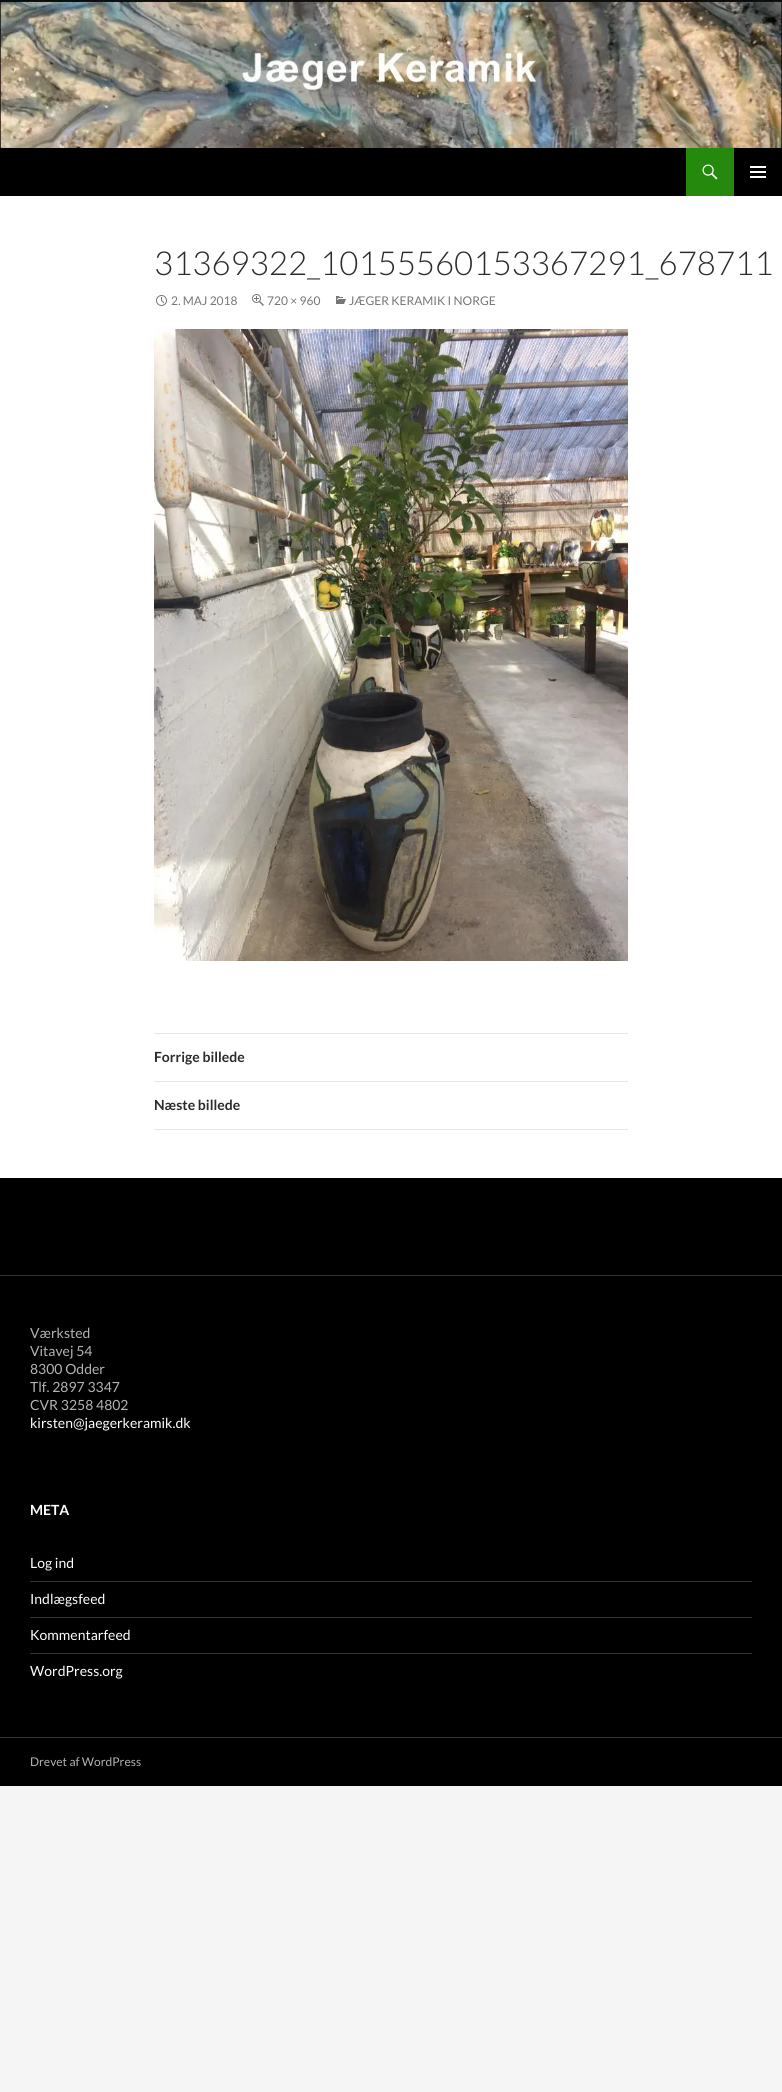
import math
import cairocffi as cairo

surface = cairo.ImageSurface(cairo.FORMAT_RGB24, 782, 2092)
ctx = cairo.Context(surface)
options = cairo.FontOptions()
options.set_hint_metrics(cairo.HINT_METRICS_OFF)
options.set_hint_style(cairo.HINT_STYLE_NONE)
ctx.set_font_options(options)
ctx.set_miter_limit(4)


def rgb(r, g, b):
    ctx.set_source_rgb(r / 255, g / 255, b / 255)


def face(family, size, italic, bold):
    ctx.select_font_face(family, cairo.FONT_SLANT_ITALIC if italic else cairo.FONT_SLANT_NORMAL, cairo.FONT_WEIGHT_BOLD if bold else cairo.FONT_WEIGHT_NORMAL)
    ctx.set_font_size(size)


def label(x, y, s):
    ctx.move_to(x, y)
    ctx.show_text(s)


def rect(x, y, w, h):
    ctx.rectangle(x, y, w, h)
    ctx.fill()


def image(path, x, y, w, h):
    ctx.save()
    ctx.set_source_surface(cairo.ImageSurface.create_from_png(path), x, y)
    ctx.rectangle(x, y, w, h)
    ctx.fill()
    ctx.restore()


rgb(245, 245, 245)
ctx.paint()
rgb(255, 255, 255)
rect(0, 196, 782, 982)
image('image0.png', 0, 0, 782, 148)
rgb(0, 0, 0)
rect(0, 148, 782, 48)
rgb(36, 137, 13)
rect(686, 148, 48, 48)
image('image1.png', 702, 164, 16, 16)
image('image2.png', 750, 166, 16, 12)
face('Lato Light', 33, 0, 0)
rgb(43, 43, 43)
label(154, 275, '31369322_10155560153367291_678711')
image('image3.png', 156, 295, 11, 11)
face('Lato', 12, 0, 0)
rgb(118, 118, 118)
label(171, 305, '2. MAJ 2018')
image('image4.png', 252, 294, 12, 12)
label(267, 305, '720 × 960')
image('image5.png', 336, 296, 10, 8)
label(349, 305, 'JÆGER KERAMIK I NORGE')
image('image6.png', 154, 329, 474, 632)
rgb(230, 230, 230)
rect(154, 1033, 474, 1)
rect(154, 1081, 474, 1)
face('Lato', 14, 0, 1)
rgb(43, 43, 43)
label(154, 1062, 'Forrige billede')
rgb(230, 230, 230)
rect(154, 1129, 474, 1)
rgb(43, 43, 43)
label(154, 1110, 'Næste billede')
rgb(0, 0, 0)
rect(0, 1178, 782, 97)
rgb(51, 51, 51)
rect(0, 1275, 782, 1)
rgb(0, 0, 0)
rect(0, 1276, 782, 510)
face('Lato', 14, 0, 0)
rgb(179, 179, 179)
label(30, 1338, 'Værksted')
label(30, 1356, 'Vitavej 54')
label(30, 1374, '8300 Odder')
label(30, 1392, 'Tlf. 2897 3347')
label(30, 1410, 'CVR 3258 4802')
rgb(255, 255, 255)
label(30, 1428, 'kirsten@jaegerkeramik.dk')
face('Lato', 14, 0, 1)
label(30, 1515, 'META')
face('Lato', 14, 0, 0)
label(30, 1568, 'Log ind')
rgb(51, 51, 51)
rect(30, 1581, 722, 1)
rgb(255, 255, 255)
label(30, 1604, 'Indlægsfeed')
rgb(51, 51, 51)
rect(30, 1617, 722, 1)
rgb(255, 255, 255)
label(30, 1640, 'Kommentarfeed')
rgb(51, 51, 51)
rect(30, 1653, 722, 1)
rgb(255, 255, 255)
label(30, 1676, 'WordPress.org')
rgb(51, 51, 51)
rect(0, 1737, 782, 1)
face('Lato', 12, 0, 0)
rgb(179, 179, 179)
label(30, 1766, 'Drevet af WordPress')
surface.write_to_png('render.png')
